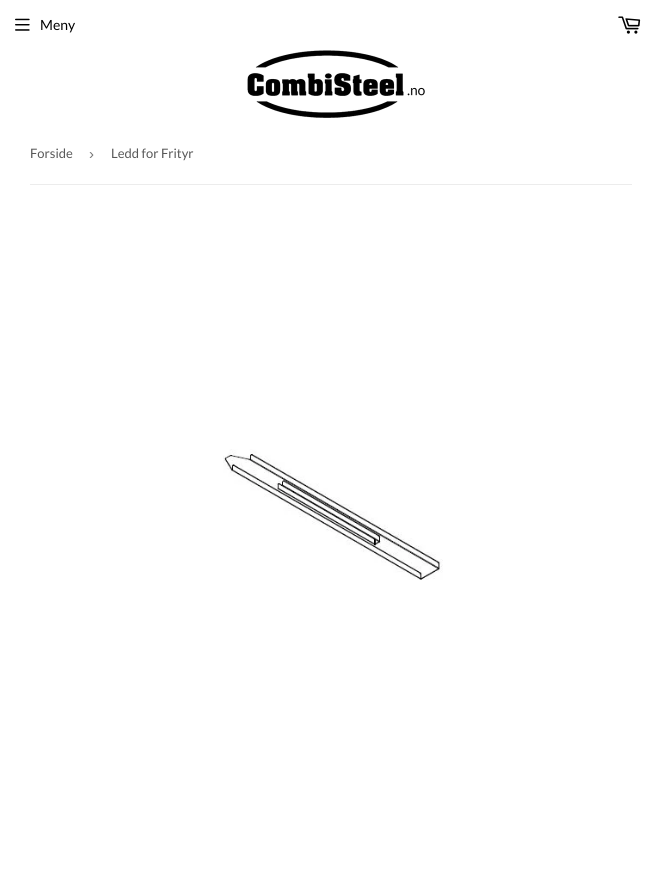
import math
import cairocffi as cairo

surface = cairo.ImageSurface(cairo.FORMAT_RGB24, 662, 876)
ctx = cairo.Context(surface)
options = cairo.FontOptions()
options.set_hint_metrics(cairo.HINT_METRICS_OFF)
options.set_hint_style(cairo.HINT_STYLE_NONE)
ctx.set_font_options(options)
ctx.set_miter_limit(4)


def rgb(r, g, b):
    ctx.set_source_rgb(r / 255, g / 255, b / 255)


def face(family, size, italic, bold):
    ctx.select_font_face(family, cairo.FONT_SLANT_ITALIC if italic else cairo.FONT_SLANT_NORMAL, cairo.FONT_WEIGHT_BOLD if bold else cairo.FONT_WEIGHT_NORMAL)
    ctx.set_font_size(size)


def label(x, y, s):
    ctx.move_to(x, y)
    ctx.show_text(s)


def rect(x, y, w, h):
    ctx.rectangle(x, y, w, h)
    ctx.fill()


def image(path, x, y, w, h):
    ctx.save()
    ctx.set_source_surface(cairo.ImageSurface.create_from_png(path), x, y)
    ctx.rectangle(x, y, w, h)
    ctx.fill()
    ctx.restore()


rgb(255, 255, 255)
ctx.paint()
image('image0.png', 15, 18, 15, 13)
face('Lato', 14, 0, 0)
rgb(0, 0, 0)
label(40, 30, 'Meny')
image('image1.png', 618, 16, 23, 18)
image('image2.png', 247, 50, 178, 68)
rgb(236, 236, 236)
rect(30, 184, 602, 1)
face('Lato', 13, 0, 0)
rgb(88, 88, 88)
label(30, 158, 'Forside')
face('Liberation Sans', 15, 0, 0)
rgb(118, 118, 118)
label(89, 159, '›')
face('Lato', 13, 0, 0)
rgb(88, 88, 88)
label(111, 158, 'Ledd for Frityr')
image('image3.png', 223, 449, 220, 131)
surface.write_to_png('render.png')
